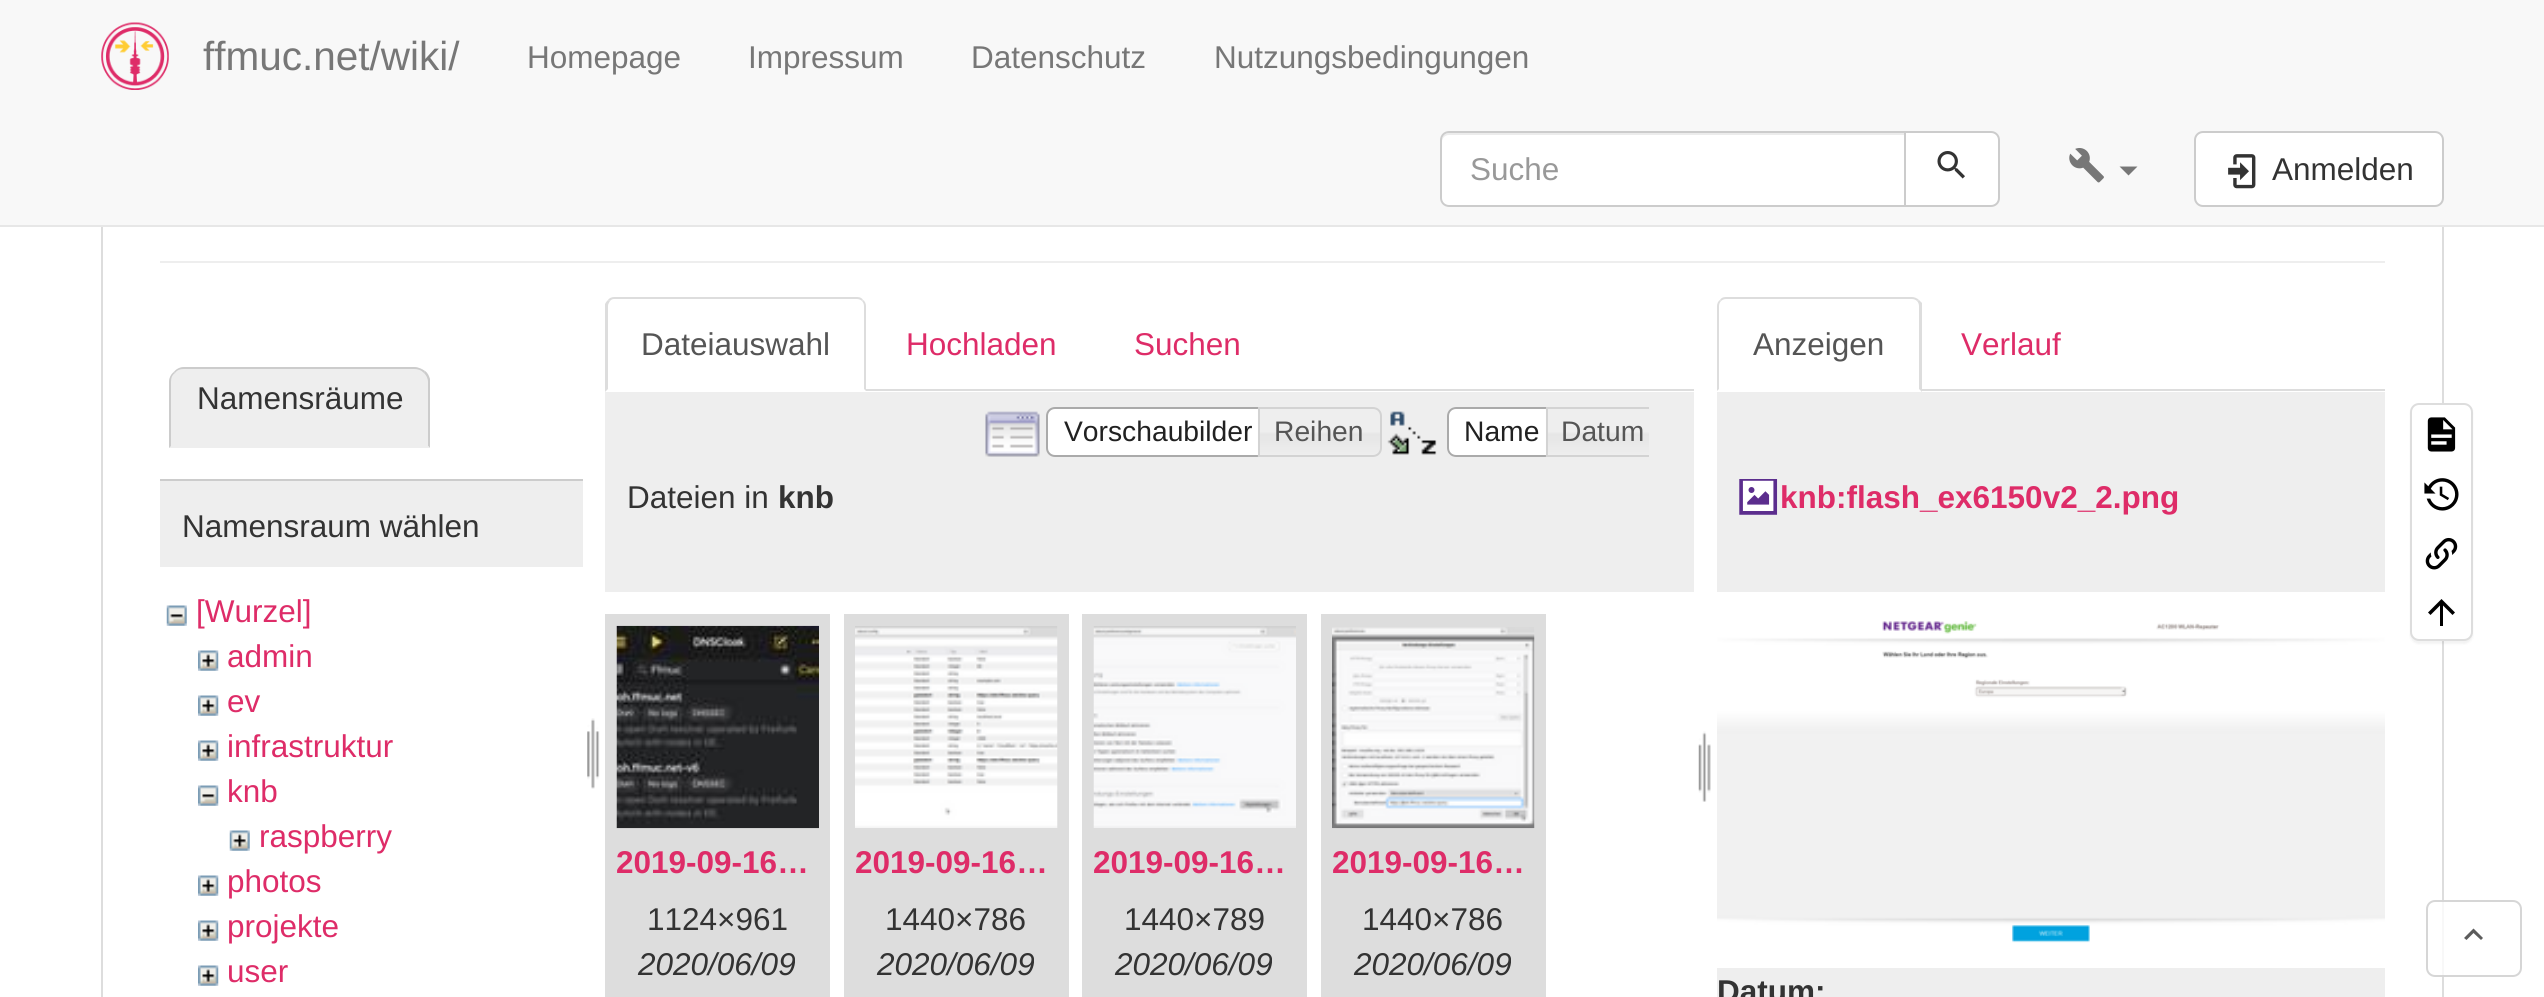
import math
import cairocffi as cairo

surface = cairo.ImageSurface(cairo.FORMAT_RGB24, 2544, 997)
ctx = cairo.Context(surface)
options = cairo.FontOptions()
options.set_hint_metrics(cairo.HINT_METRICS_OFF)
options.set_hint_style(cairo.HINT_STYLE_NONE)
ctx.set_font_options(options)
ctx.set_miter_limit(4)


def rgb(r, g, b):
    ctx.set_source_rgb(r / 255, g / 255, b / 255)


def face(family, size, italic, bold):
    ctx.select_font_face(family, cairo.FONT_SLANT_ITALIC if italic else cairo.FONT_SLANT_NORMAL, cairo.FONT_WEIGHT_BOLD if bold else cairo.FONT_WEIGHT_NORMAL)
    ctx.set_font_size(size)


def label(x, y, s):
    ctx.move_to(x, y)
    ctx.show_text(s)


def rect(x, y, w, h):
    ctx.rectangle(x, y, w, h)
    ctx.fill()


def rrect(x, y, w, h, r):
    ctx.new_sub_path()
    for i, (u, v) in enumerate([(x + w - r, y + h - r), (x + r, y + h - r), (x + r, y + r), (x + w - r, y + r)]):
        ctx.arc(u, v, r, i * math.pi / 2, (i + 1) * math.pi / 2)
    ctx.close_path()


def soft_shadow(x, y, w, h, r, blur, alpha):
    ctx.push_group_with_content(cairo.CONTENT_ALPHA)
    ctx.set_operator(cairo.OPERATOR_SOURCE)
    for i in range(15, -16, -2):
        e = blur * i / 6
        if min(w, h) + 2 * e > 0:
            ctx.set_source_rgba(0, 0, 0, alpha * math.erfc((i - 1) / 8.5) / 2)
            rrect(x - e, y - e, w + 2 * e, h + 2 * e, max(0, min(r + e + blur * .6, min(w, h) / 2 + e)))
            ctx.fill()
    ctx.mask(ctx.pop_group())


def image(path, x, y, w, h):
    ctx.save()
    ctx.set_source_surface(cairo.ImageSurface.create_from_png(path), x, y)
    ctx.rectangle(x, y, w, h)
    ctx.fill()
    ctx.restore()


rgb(255, 255, 255)
ctx.paint()
ctx.rectangle(102, 10, 2341, 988)
rgb(221, 221, 221)
ctx.stroke()
rgb(248, 248, 248)
rect(0, 0, 2544, 225)
rgb(231, 231, 231)
rect(0, 225, 2544, 2)
image('image0.png', 101, 22, 68, 68)
face('Liberation Sans', 40.5, 0, 0)
rgb(119, 119, 119)
label(203, 70, 'ffmuc.net/wiki/')
face('Liberation Sans', 31.5, 0, 0)
label(527, 68, 'Homepage')
label(748, 68, 'Impressum')
label(971, 68, 'Datenschutz')
label(1214, 68, 'Nutzungsbedingungen')
rgb(255, 255, 255)
ctx.new_path()
ctx.move_to(1449, 131)
ctx.line_to(1906, 131)
ctx.line_to(1906, 207)
ctx.line_to(1449, 207)
ctx.curve_to(1444, 207, 1440, 203, 1440, 198)
ctx.line_to(1440, 140)
ctx.curve_to(1440, 135, 1444, 131, 1449, 131)
ctx.close_path()
ctx.fill()
rgb(236, 236, 236)
ctx.new_path()
ctx.move_to(1449, 135)
ctx.line_to(1904, 135)
ctx.line_to(1904, 133)
ctx.line_to(1449, 133)
ctx.curve_to(1445, 133, 1442, 136, 1442, 140)
ctx.line_to(1442, 142)
ctx.curve_to(1442, 138, 1445, 135, 1449, 135)
ctx.close_path()
ctx.fill()
ctx.new_path()
ctx.move_to(1449, 132)
ctx.line_to(1905, 132)
ctx.line_to(1905, 206)
ctx.line_to(1449, 206)
ctx.curve_to(1444.5, 206, 1441, 202.5, 1441, 198)
ctx.line_to(1441, 140)
ctx.curve_to(1441, 135.5, 1444.5, 132, 1449, 132)
ctx.close_path()
rgb(204, 204, 204)
ctx.stroke()
rgb(153, 153, 153)
label(1470, 180, 'Suche')
rgb(255, 255, 255)
ctx.new_path()
ctx.move_to(1905, 132)
ctx.line_to(1991, 132)
ctx.curve_to(1995.5, 132, 1999, 135.5, 1999, 140)
ctx.line_to(1999, 198)
ctx.curve_to(1999, 202.5, 1995.5, 206, 1991, 206)
ctx.line_to(1905, 206)
ctx.close_path()
ctx.fill_preserve()
rgb(204, 204, 204)
ctx.stroke()
image('image1.png', 1937, 151, 28, 28)
image('image2.png', 2069, 148, 35, 35)
rgb(119, 119, 119)
ctx.new_path()
ctx.move_to(2119.5, 166.5)
ctx.line_to(2137.5, 166.5)
ctx.line_to(2128.5, 175.5)
ctx.close_path()
ctx.fill()
rgb(255, 255, 255)
rrect(2195, 132, 248, 74, 8)
ctx.fill_preserve()
rgb(204, 204, 204)
ctx.stroke()
image('image3.png', 2228, 154, 28, 35)
rgb(51, 51, 51)
label(2272, 180, 'Anmelden')
rgb(238, 238, 238)
rect(160, 261, 2225, 2)
ctx.new_path()
ctx.move_to(185, 367)
ctx.line_to(414, 367)
ctx.curve_to(423, 367, 430, 374, 430, 383)
ctx.line_to(430, 448)
ctx.line_to(169, 448)
ctx.line_to(169, 383)
ctx.curve_to(169, 374, 176, 367, 185, 367)
ctx.close_path()
ctx.fill()
rgb(204, 204, 204)
ctx.new_path()
ctx.move_to(184, 367)
ctx.curve_to(180, 367, 176, 369, 174, 372)
ctx.line_to(175, 373)
ctx.curve_to(177, 370, 180, 369, 184, 369)
ctx.line_to(414, 369)
ctx.curve_to(418, 369, 421, 370, 424, 373)
ctx.line_to(425, 371)
ctx.curve_to(422, 369, 418, 367, 414, 367)
ctx.close_path()
ctx.fill()
ctx.new_path()
ctx.move_to(425, 371)
ctx.curve_to(428, 373, 429, 376, 430, 379)
ctx.line_to(430, 448)
ctx.line_to(428, 446)
ctx.line_to(428, 382)
ctx.curve_to(428, 378, 426, 375, 424, 373)
ctx.close_path()
ctx.fill()
rgb(238, 238, 238)
ctx.new_path()
ctx.move_to(430, 448)
ctx.line_to(169, 448)
ctx.line_to(171, 446)
ctx.line_to(428, 446)
ctx.close_path()
ctx.fill()
rgb(204, 204, 204)
ctx.new_path()
ctx.move_to(174, 372)
ctx.curve_to(171, 374, 169, 378, 169, 382)
ctx.line_to(169, 448)
ctx.line_to(171, 446)
ctx.line_to(171, 382)
ctx.curve_to(171, 378, 172, 375, 175, 373)
ctx.close_path()
ctx.fill()
rgb(51, 51, 51)
label(197, 409, 'Namensräume')
rgb(238, 238, 238)
rect(160, 481, 423, 86)
rgb(204, 204, 204)
rect(160, 479, 423, 2)
rgb(51, 51, 51)
label(182, 537, 'Namensraum wählen')
image('image4.png', 166, 605, 21, 21)
rgb(222, 44, 104)
label(196, 622, '[Wurzel]')
image('image5.png', 198, 650, 21, 21)
label(227, 667, 'admin')
image('image5.png', 198, 695, 21, 21)
label(227, 712, 'ev')
image('image5.png', 198, 740, 21, 21)
label(227, 757, 'infrastruktur')
image('image6.png', 198, 785, 21, 21)
label(227, 802, 'knb')
image('image7.png', 229, 830, 21, 21)
label(259, 847, 'raspberry')
image('image8.png', 198, 875, 21, 21)
label(227, 892, 'photos')
image('image5.png', 198, 920, 21, 21)
label(227, 937, 'projekte')
image('image5.png', 198, 965, 21, 21)
label(227, 982, 'user')
image('image9.png', 587, 718, 13, 71)
rgb(221, 221, 221)
rect(866, 389, 828, 2)
ctx.new_path()
ctx.move_to(614, 297)
ctx.curve_to(612, 297, 609, 298, 608, 300)
ctx.line_to(610, 301)
ctx.curve_to(611, 300, 612, 299, 614, 299)
ctx.line_to(857, 299)
ctx.curve_to(859, 299, 861, 300, 862, 301)
ctx.line_to(863, 300)
ctx.curve_to(862, 298, 860, 297, 857, 297)
ctx.close_path()
ctx.fill()
ctx.new_path()
ctx.move_to(863, 300)
ctx.curve_to(865, 301, 866, 304, 866, 306)
ctx.line_to(866, 391)
ctx.line_to(864, 389)
ctx.line_to(864, 306)
ctx.curve_to(864, 304, 863, 302, 862, 301)
ctx.close_path()
ctx.fill()
ctx.new_path()
ctx.move_to(605, 392)
ctx.line_to(605, 304)
ctx.curve_to(606, 302, 607, 301, 608, 300)
ctx.line_to(610, 301)
ctx.curve_to(609, 303, 608, 304, 608, 306)
ctx.line_to(608, 389)
ctx.close_path()
ctx.fill()
rgb(85, 85, 85)
label(641, 355, 'Dateiauswahl')
rgb(222, 44, 104)
label(906, 355, 'Hochladen')
label(1134, 355, 'Suchen')
rgb(238, 238, 238)
rect(605, 392, 1089, 200)
image('image10.png', 985, 411, 55, 46)
rgb(255, 255, 255)
ctx.new_path()
ctx.move_to(1055, 408)
ctx.line_to(1268, 408)
ctx.line_to(1268, 456)
ctx.line_to(1055, 456)
ctx.curve_to(1050.5, 456, 1047, 452.5, 1047, 448)
ctx.line_to(1047, 416)
ctx.curve_to(1047, 411.5, 1050.5, 408, 1055, 408)
ctx.close_path()
ctx.fill_preserve()
rgb(170, 170, 170)
ctx.stroke()
face('Liberation Sans', 28.25, 0, 0)
rgb(33, 33, 33)
label(1064, 441, 'Vorschaubilder')
image('image11.png', 1257, 408, 124, 49)
ctx.new_path()
ctx.move_to(1259, 408)
ctx.line_to(1373, 408)
ctx.curve_to(1377.5, 408, 1381, 411.5, 1381, 416)
ctx.line_to(1381, 448)
ctx.curve_to(1381, 452.5, 1377.5, 456, 1373, 456)
ctx.line_to(1259, 456)
ctx.close_path()
rgb(211, 211, 211)
ctx.stroke()
rgb(85, 85, 85)
label(1274, 441, 'Reihen')
image('image12.png', 1387, 411, 50, 44)
rgb(255, 255, 255)
ctx.new_path()
ctx.move_to(1456, 407)
ctx.line_to(1557, 407)
ctx.line_to(1557, 457)
ctx.line_to(1456, 457)
ctx.curve_to(1451, 457, 1447, 453, 1447, 448)
ctx.line_to(1447, 416)
ctx.curve_to(1447, 411, 1451, 407, 1456, 407)
ctx.close_path()
ctx.fill()
image('image13.png', 1447, 450, 3, 5)
ctx.new_path()
ctx.move_to(1456, 408)
ctx.line_to(1556, 408)
ctx.line_to(1556, 456)
ctx.line_to(1456, 456)
ctx.curve_to(1451.5, 456, 1448, 452.5, 1448, 448)
ctx.line_to(1448, 416)
ctx.curve_to(1448, 411.5, 1451.5, 408, 1456, 408)
ctx.close_path()
rgb(170, 170, 170)
ctx.stroke()
rgb(33, 33, 33)
label(1464, 441, 'Name')
image('image14.png', 1545, 408, 104, 49)
ctx.save()
ctx.rectangle(968, 407, 681, 50)
ctx.clip()
ctx.new_path()
ctx.move_to(1547, 408)
ctx.line_to(1652, 408)
ctx.curve_to(1656.5, 408, 1660, 411.5, 1660, 416)
ctx.line_to(1660, 448)
ctx.curve_to(1660, 452.5, 1656.5, 456, 1652, 456)
ctx.line_to(1547, 456)
ctx.close_path()
rgb(211, 211, 211)
ctx.stroke()
ctx.restore()
rgb(85, 85, 85)
label(1561, 441, 'Datum')
face('Liberation Sans', 31.5, 0, 0)
rgb(51, 51, 51)
label(627, 508, 'Dateien in')
face('Liberation Sans', 31.5, 0, 1)
label(778, 508, 'knb')
image('image15.png', 1698, 731, 13, 71)
rgb(221, 221, 221)
rect(605, 614, 225, 383)
image('image16.png', 616, 625, 203, 204)
rgb(222, 44, 104)
label(616, 873, '2019-09-16…')
face('Liberation Sans', 31.5, 0, 0)
rgb(51, 51, 51)
label(647, 930, '1124×961')
face('Liberation Sans', 31.5, 1, 0)
label(638, 975, '2020/06/09')
rgb(221, 221, 221)
rect(844, 614, 225, 383)
image('image17.png', 855, 626, 203, 202)
face('Liberation Sans', 31.5, 0, 1)
rgb(222, 44, 104)
label(855, 873, '2019-09-16…')
face('Liberation Sans', 31.5, 0, 0)
rgb(51, 51, 51)
label(885, 930, '1440×786')
face('Liberation Sans', 31.5, 1, 0)
label(877, 975, '2020/06/09')
rgb(221, 221, 221)
rect(1082, 614, 225, 383)
image('image18.png', 1093, 626, 203, 202)
face('Liberation Sans', 31.5, 0, 1)
rgb(222, 44, 104)
label(1093, 873, '2019-09-16…')
face('Liberation Sans', 31.5, 0, 0)
rgb(51, 51, 51)
label(1124, 930, '1440×789')
face('Liberation Sans', 31.5, 1, 0)
label(1115, 975, '2020/06/09')
rgb(221, 221, 221)
rect(1321, 614, 225, 383)
image('image19.png', 1332, 627, 203, 202)
face('Liberation Sans', 31.5, 0, 1)
rgb(222, 44, 104)
label(1332, 873, '2019-09-16…')
face('Liberation Sans', 31.5, 0, 0)
rgb(51, 51, 51)
label(1362, 930, '1440×786')
face('Liberation Sans', 31.5, 1, 0)
label(1354, 975, '2020/06/09')
rgb(221, 221, 221)
rect(1922, 389, 463, 2)
ctx.new_path()
ctx.move_to(1726, 297)
ctx.curve_to(1723, 297, 1721, 298, 1720, 300)
ctx.line_to(1721, 301)
ctx.curve_to(1722, 300, 1724, 299, 1726, 299)
ctx.line_to(1912, 299)
ctx.curve_to(1914, 299, 1916, 300, 1917, 301)
ctx.line_to(1919, 300)
ctx.curve_to(1917, 298, 1914, 297, 1912, 297)
ctx.close_path()
ctx.fill()
ctx.new_path()
ctx.move_to(1919, 300)
ctx.line_to(1922, 303)
ctx.line_to(1922, 392)
ctx.line_to(1919, 389)
ctx.line_to(1919, 306)
ctx.curve_to(1919, 304, 1918, 302, 1917, 301)
ctx.close_path()
ctx.fill()
ctx.new_path()
ctx.move_to(1720, 300)
ctx.curve_to(1718, 301, 1717, 304, 1717, 306)
ctx.line_to(1717, 391)
ctx.line_to(1719, 389)
ctx.line_to(1719, 306)
ctx.curve_to(1719, 304, 1720, 302, 1721, 301)
ctx.close_path()
ctx.fill()
face('Liberation Sans', 31.5, 0, 0)
rgb(85, 85, 85)
label(1753, 355, 'Anzeigen')
rgb(222, 44, 104)
label(1961, 355, 'Verlauf')
rgb(238, 238, 238)
rect(1717, 392, 668, 200)
image('image20.png', 1739, 479, 39, 36)
face('Liberation Sans', 31.5, 0, 1)
rgb(222, 44, 104)
label(1780, 508, 'knb:flash_ex6150v2_2.png')
image('image21.png', 1717, 621, 668, 322)
rgb(238, 238, 238)
rect(1717, 968, 668, 29)
rgb(51, 51, 51)
label(1717, 1002, 'Datum:')
rgb(0, 0, 0)
soft_shadow(2410, 405, 63, 239, 9, 1, 0.05)
rgb(255, 255, 255)
rrect(2411, 404, 61, 236, 8)
ctx.fill_preserve()
rgb(221, 221, 221)
ctx.stroke()
image('image22.png', 2427, 417, 29, 35)
image('image23.png', 2424, 478, 35, 33)
image('image24.png', 2425, 537, 33, 33)
rgb(0, 0, 0)
ctx.new_path()
ctx.move_to(2443, 626)
ctx.line_to(2440, 626)
ctx.line_to(2440, 605.5)
ctx.line_to(2430.5, 615)
ctx.line_to(2428, 612.5)
ctx.line_to(2441.5, 599)
ctx.line_to(2455, 612.5)
ctx.line_to(2452.5, 615)
ctx.line_to(2443, 605.5)
ctx.close_path()
ctx.fill()
ctx.set_source_rgba(1, 1, 1, 0.8)
rrect(2426, 900, 96, 77, 9)
ctx.fill()
rrect(2427, 901, 94, 75, 8)
ctx.set_source_rgba(0.8, 0.8, 0.8, 0.8)
ctx.stroke()
rgb(92, 92, 92)
ctx.new_path()
ctx.move_to(2466.5, 940)
ctx.line_to(2473.5, 933)
ctx.line_to(2481, 940)
ctx.line_to(2483, 938)
ctx.line_to(2473.5, 928.5)
ctx.line_to(2464, 938)
ctx.close_path()
ctx.fill()
surface.write_to_png('render.png')
